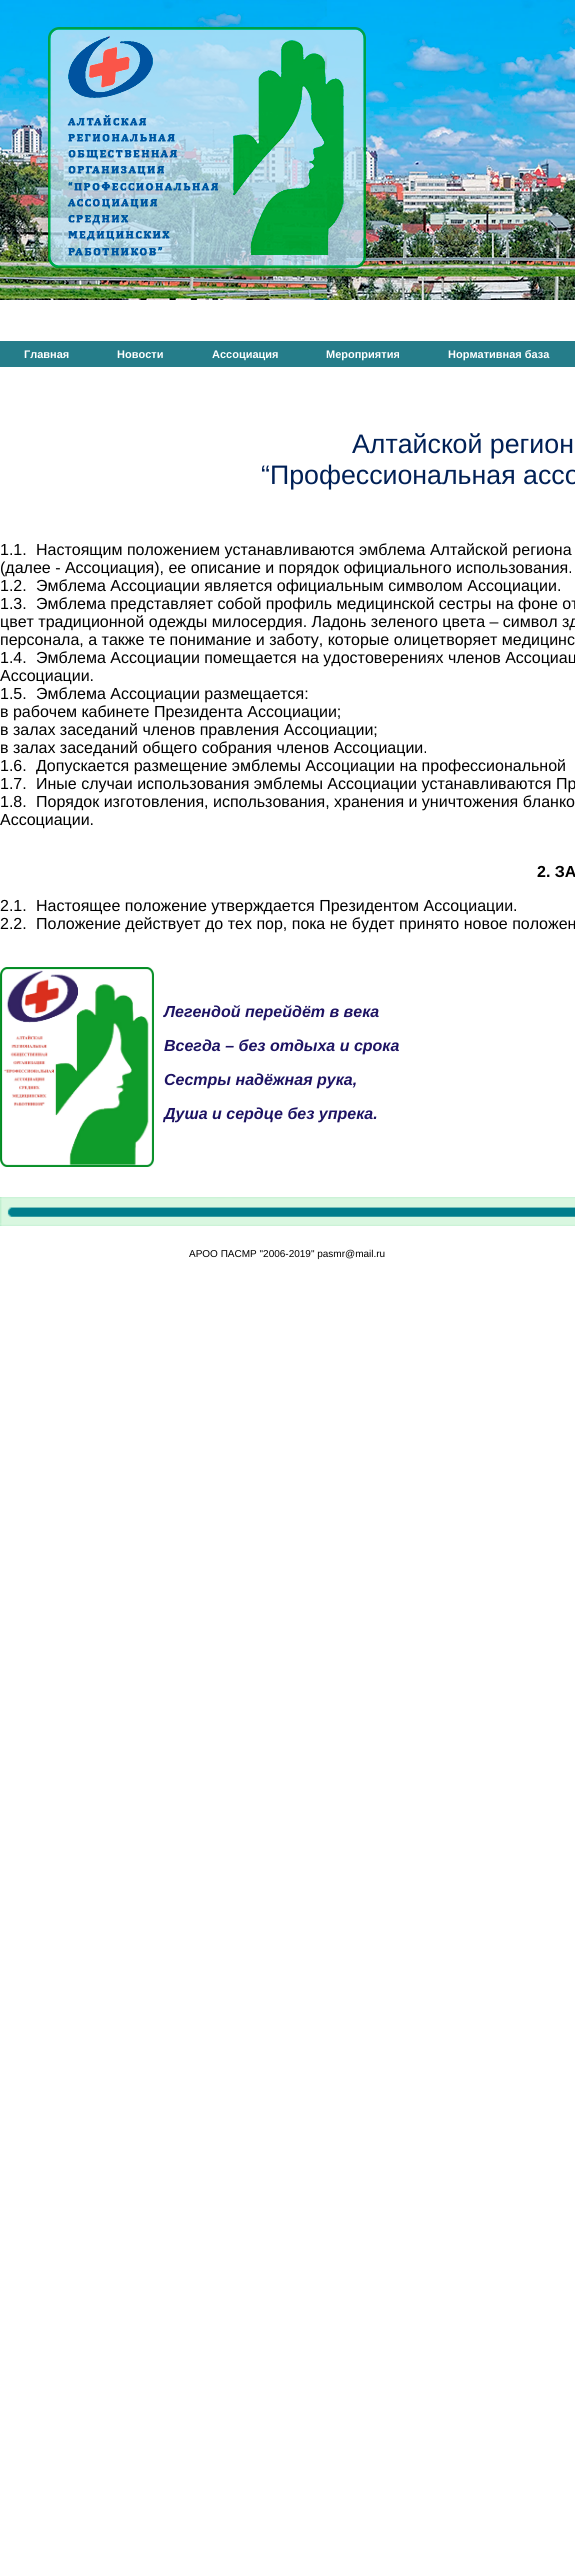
import math
import cairocffi as cairo

surface = cairo.ImageSurface(cairo.FORMAT_RGB24, 575, 2569)
ctx = cairo.Context(surface)
options = cairo.FontOptions()
options.set_hint_metrics(cairo.HINT_METRICS_OFF)
options.set_hint_style(cairo.HINT_STYLE_NONE)
ctx.set_font_options(options)
ctx.set_miter_limit(4)


def rgb(r, g, b):
    ctx.set_source_rgb(r / 255, g / 255, b / 255)


def face(family, size, italic, bold):
    ctx.select_font_face(family, cairo.FONT_SLANT_ITALIC if italic else cairo.FONT_SLANT_NORMAL, cairo.FONT_WEIGHT_BOLD if bold else cairo.FONT_WEIGHT_NORMAL)
    ctx.set_font_size(size)


def label(x, y, s):
    ctx.move_to(x, y)
    ctx.show_text(s)


def rect(x, y, w, h):
    ctx.rectangle(x, y, w, h)
    ctx.fill()


def image(path, x, y, w, h):
    ctx.save()
    ctx.set_source_surface(cairo.ImageSurface.create_from_png(path), x, y)
    ctx.rectangle(x, y, w, h)
    ctx.fill()
    ctx.restore()


rgb(255, 255, 255)
ctx.paint()
image('image0.png', 0, 0, 575, 300)
rgb(37, 125, 138)
rect(0, 341, 575, 26)
face('Liberation Sans', 11, 0, 1)
rgb(255, 255, 255)
label(24, 358, 'Главная')
label(117, 358, 'Новости')
label(212, 358, 'Ассоциация')
label(326, 358, 'Мероприятия')
label(448, 358, 'Нормативная база')
face('Liberation Sans', 26.75, 0, 0)
rgb(0, 32, 86)
label(352, 453, 'Алтайской регион')
label(261, 484, '“Профессиональная ассо')
face('Liberation Sans', 16, 0, 0)
rgb(0, 0, 0)
label(0, 555, '1.1.')
label(36, 555, 'Настоящим положением устанавливаются эмблема Алтайской региона')
label(0, 573, '(далее - Ассоциация), ее описание и порядок официального использования.')
label(0, 591, '1.2.')
label(36, 591, 'Эмблема Ассоциации является официальным символом Ассоциации.')
label(0, 609, '1.3.')
label(36, 609, 'Эмблема представляет собой профиль медицинской сестры на фоне от')
label(0, 627, 'цвет традиционной одежды милосердия. Ладонь зеленого цвета – символ зд')
label(0, 645, 'персонала, а также те понимание и заботу, которые олицетворяет медицинс')
label(0, 663, '1.4.')
label(36, 663, 'Эмблема Ассоциации помещается на удостоверениях членов Ассоциац')
label(0, 681, 'Ассоциации.')
label(0, 699, '1.5.')
label(36, 699, 'Эмблема Ассоциации размещается:')
label(0, 717, 'в рабочем кабинете Президента Ассоциации;')
label(0, 735, 'в залах заседаний членов правления Ассоциации;')
label(0, 753, 'в залах заседаний общего собрания членов Ассоциации.')
label(0, 771, '1.6.')
label(36, 771, 'Допускается размещение эмблемы Ассоциации на профессиональной')
label(0, 789, '1.7.')
label(36, 789, 'Иные случаи использования эмблемы Ассоциации устанавливаются Пр')
label(0, 807, '1.8.')
label(36, 807, 'Порядок изготовления, использования, хранения и уничтожения бланко')
label(0, 825, 'Ассоциации.')
face('Liberation Sans', 16, 0, 1)
label(537, 877, '2. ЗА')
face('Liberation Sans', 16, 0, 0)
label(0, 911, '2.1.')
label(36, 911, 'Настоящее положение утверждается Президентом Ассоциации.')
label(0, 929, '2.2.')
label(36, 929, 'Положение действует до тех пор, пока не будет принято новое положен')
image('image1.png', 0, 967, 154, 200)
face('Liberation Sans', 16, 1, 1)
rgb(29, 19, 99)
label(164, 1017, 'Легендой перейдёт в века')
label(164, 1051, 'Всегда – без отдыха и срока')
label(164, 1085, 'Сестры надёжная рука,')
label(164, 1119, 'Душа и сердце без упрека.')
image('image2.png', 0, 1197, 575, 29)
face('Liberation Sans', 10, 0, 0)
rgb(0, 0, 0)
label(189, 1257, 'АРОО ПАСМР "2006-2019" pasmr@mail.ru')
surface.write_to_png('render.png')
